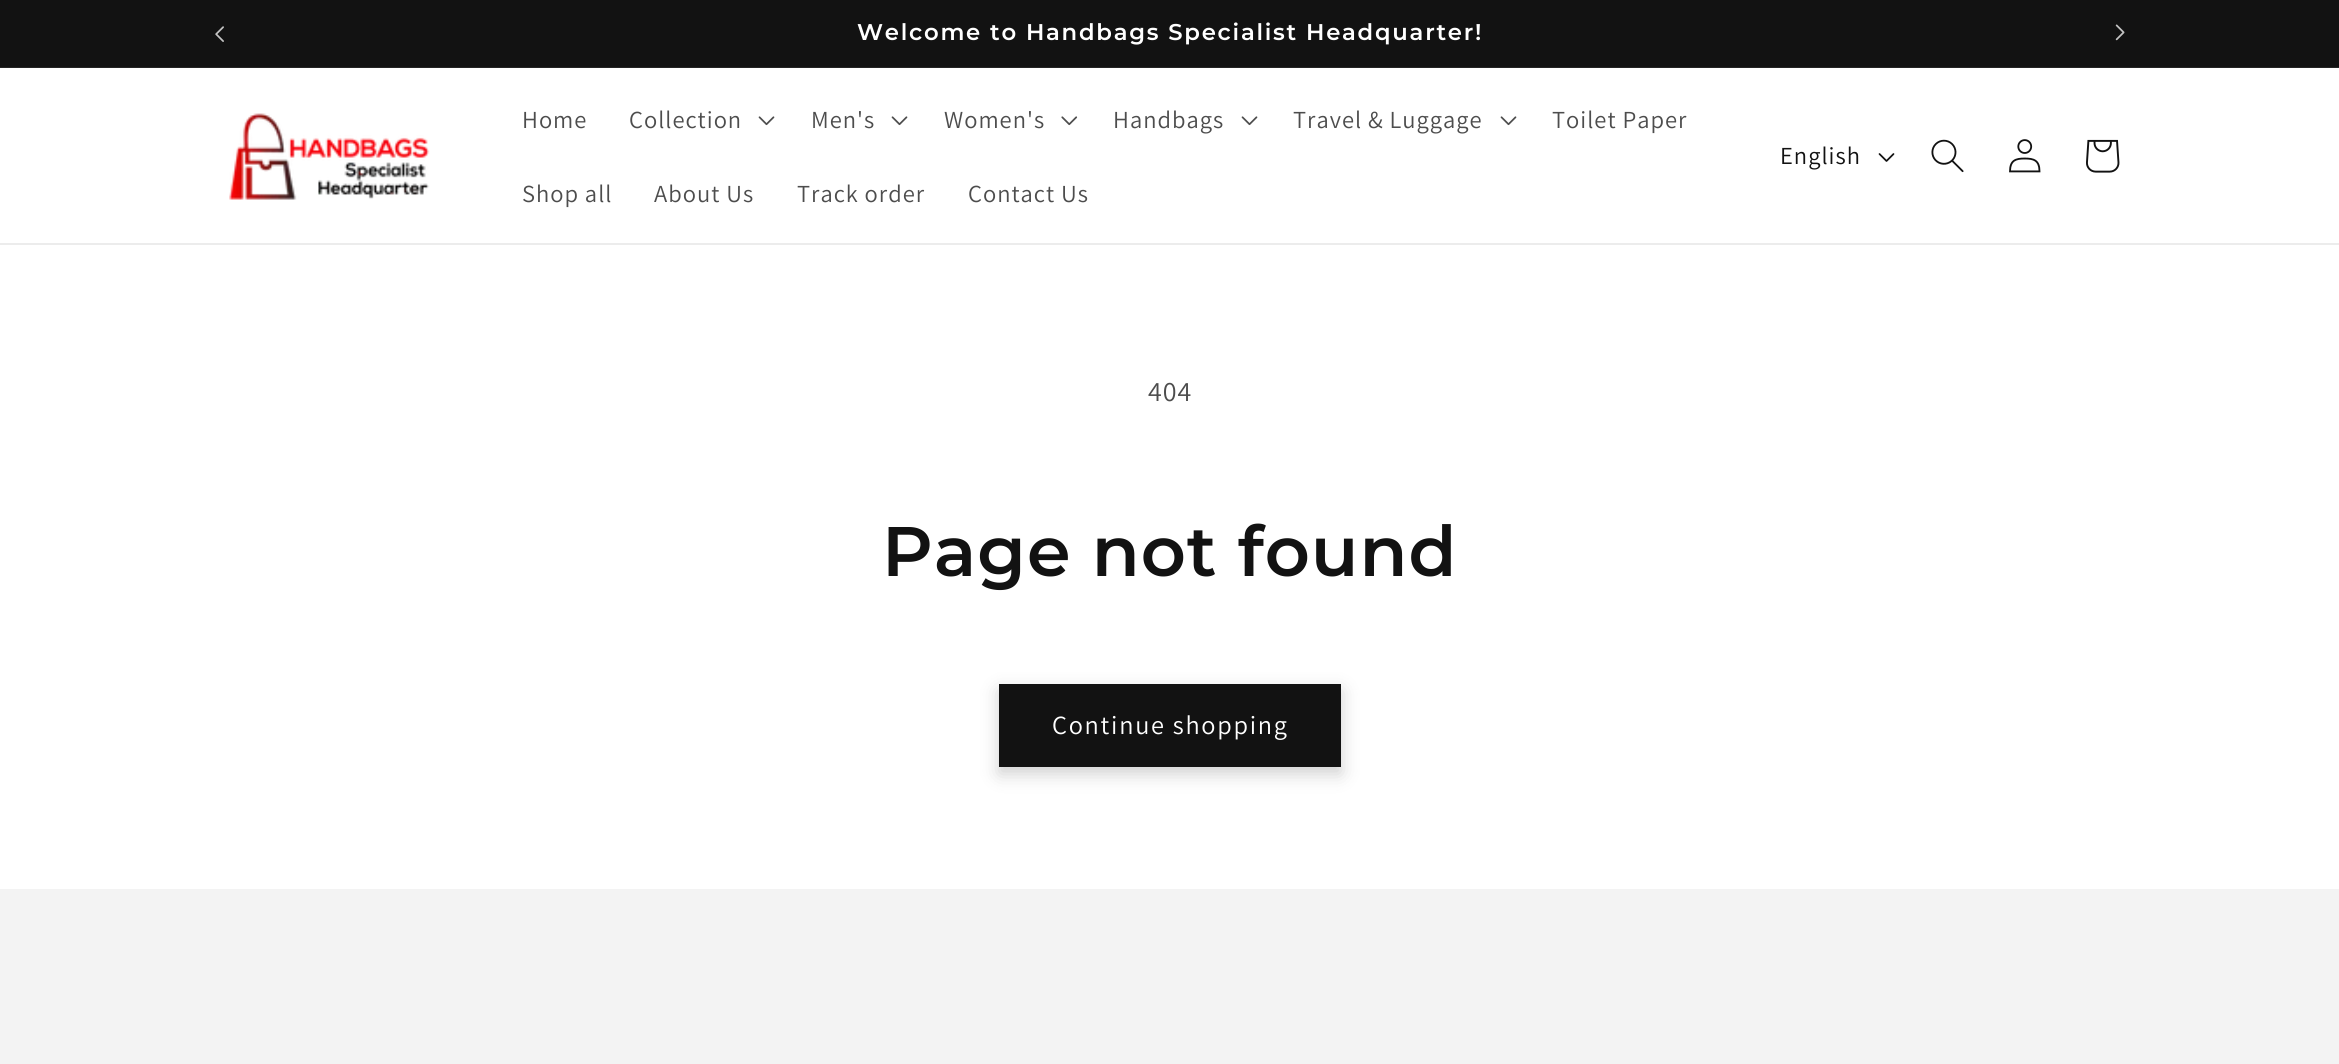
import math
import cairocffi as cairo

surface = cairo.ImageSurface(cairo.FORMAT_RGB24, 2339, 1064)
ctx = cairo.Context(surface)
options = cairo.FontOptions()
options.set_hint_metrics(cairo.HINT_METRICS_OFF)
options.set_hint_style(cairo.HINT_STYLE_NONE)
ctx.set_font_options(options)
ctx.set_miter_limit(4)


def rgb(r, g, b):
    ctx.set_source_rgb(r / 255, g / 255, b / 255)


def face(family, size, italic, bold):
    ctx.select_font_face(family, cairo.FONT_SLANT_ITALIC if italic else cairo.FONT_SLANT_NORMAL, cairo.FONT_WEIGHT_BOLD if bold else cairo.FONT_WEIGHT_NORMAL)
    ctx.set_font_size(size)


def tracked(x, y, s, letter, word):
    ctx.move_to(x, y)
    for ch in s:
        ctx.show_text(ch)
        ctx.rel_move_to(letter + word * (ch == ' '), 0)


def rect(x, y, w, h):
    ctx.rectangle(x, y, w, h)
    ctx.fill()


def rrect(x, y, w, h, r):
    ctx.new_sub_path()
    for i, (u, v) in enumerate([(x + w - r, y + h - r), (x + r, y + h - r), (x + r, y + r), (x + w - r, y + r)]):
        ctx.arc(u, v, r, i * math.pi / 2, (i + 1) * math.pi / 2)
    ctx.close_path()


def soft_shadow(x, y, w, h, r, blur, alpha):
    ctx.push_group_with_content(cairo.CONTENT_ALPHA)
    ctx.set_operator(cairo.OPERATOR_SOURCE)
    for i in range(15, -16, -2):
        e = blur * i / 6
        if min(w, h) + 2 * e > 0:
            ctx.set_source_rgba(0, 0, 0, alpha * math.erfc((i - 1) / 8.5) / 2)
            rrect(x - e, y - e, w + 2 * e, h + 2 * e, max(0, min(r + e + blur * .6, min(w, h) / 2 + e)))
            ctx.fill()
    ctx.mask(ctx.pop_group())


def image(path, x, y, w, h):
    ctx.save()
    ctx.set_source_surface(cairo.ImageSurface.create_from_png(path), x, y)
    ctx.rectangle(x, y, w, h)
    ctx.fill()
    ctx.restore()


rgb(255, 255, 255)
ctx.paint()
rgb(18, 18, 18)
rect(0, 0, 2339, 67)
rgb(37, 37, 37)
rect(0, 67, 2339, 1)
image('image0.png', 215, 26, 9, 16)
face('Montserrat SemiBold', 22.75, 0, 0)
rgb(255, 255, 255)
tracked(857, 40, 'Welcome to Handbags Specialist Headquarter!', 1.75, 0)
image('image1.png', 2115, 24, 10, 17)
rgb(236, 236, 236)
rect(0, 243, 2339, 2)
image('image2.png', 229, 113, 201, 87)
face('Assistant', 24.5, 0, 0)
rgb(77, 77, 77)
tracked(522, 128, 'Home', 1, 0)
tracked(629, 128, 'Collection', 1, 0)
image('image3.png', 758, 116, 17, 10)
tracked(811, 128, 'Men\'s', 1, 0)
image('image3.png', 891, 116, 17, 10)
tracked(944, 128, 'Women\'s', 1, 0)
image('image4.png', 1061, 116, 17, 10)
tracked(1113, 128, 'Handbags', 1, 0)
image('image3.png', 1241, 116, 17, 10)
tracked(1293, 128, 'Travel & Luggage', 1, 0)
image('image3.png', 1500, 116, 17, 10)
tracked(1552, 128, 'Toilet Paper', 1, 0)
tracked(522, 202, 'Shop all', 1, 0)
tracked(654, 202, 'About Us', 1, 0)
tracked(797, 202, 'Track order', 1, 0)
tracked(968, 202, 'Contact Us', 1, 0)
rgb(18, 18, 18)
tracked(1780, 164, 'English', 1, 0)
image('image5.png', 1878, 153, 17, 9)
image('image6.png', 1931, 139, 33, 34)
image('image7.png', 2009, 139, 32, 34)
image('image8.png', 2086, 139, 34, 34)
face('Assistant', 28, 0, 0)
rgb(77, 77, 77)
tracked(1148, 401, '404', 1, 0)
face('Montserrat SemiBold', 70, 0, 0)
rgb(18, 18, 18)
tracked(882, 576, 'Page not found', 1, 0)
rgb(18, 18, 18)
soft_shadow(999, 691, 342, 83, 0, 9, 0.2)
rgb(18, 18, 18)
rect(999, 684, 342, 83)
face('Assistant', 26.25, 0, 0)
rgb(255, 255, 255)
tracked(1052, 734, 'Continue shopping', 1.75, 0)
rgb(243, 243, 243)
rect(0, 889, 2339, 175)
surface.write_to_png('render.png')
